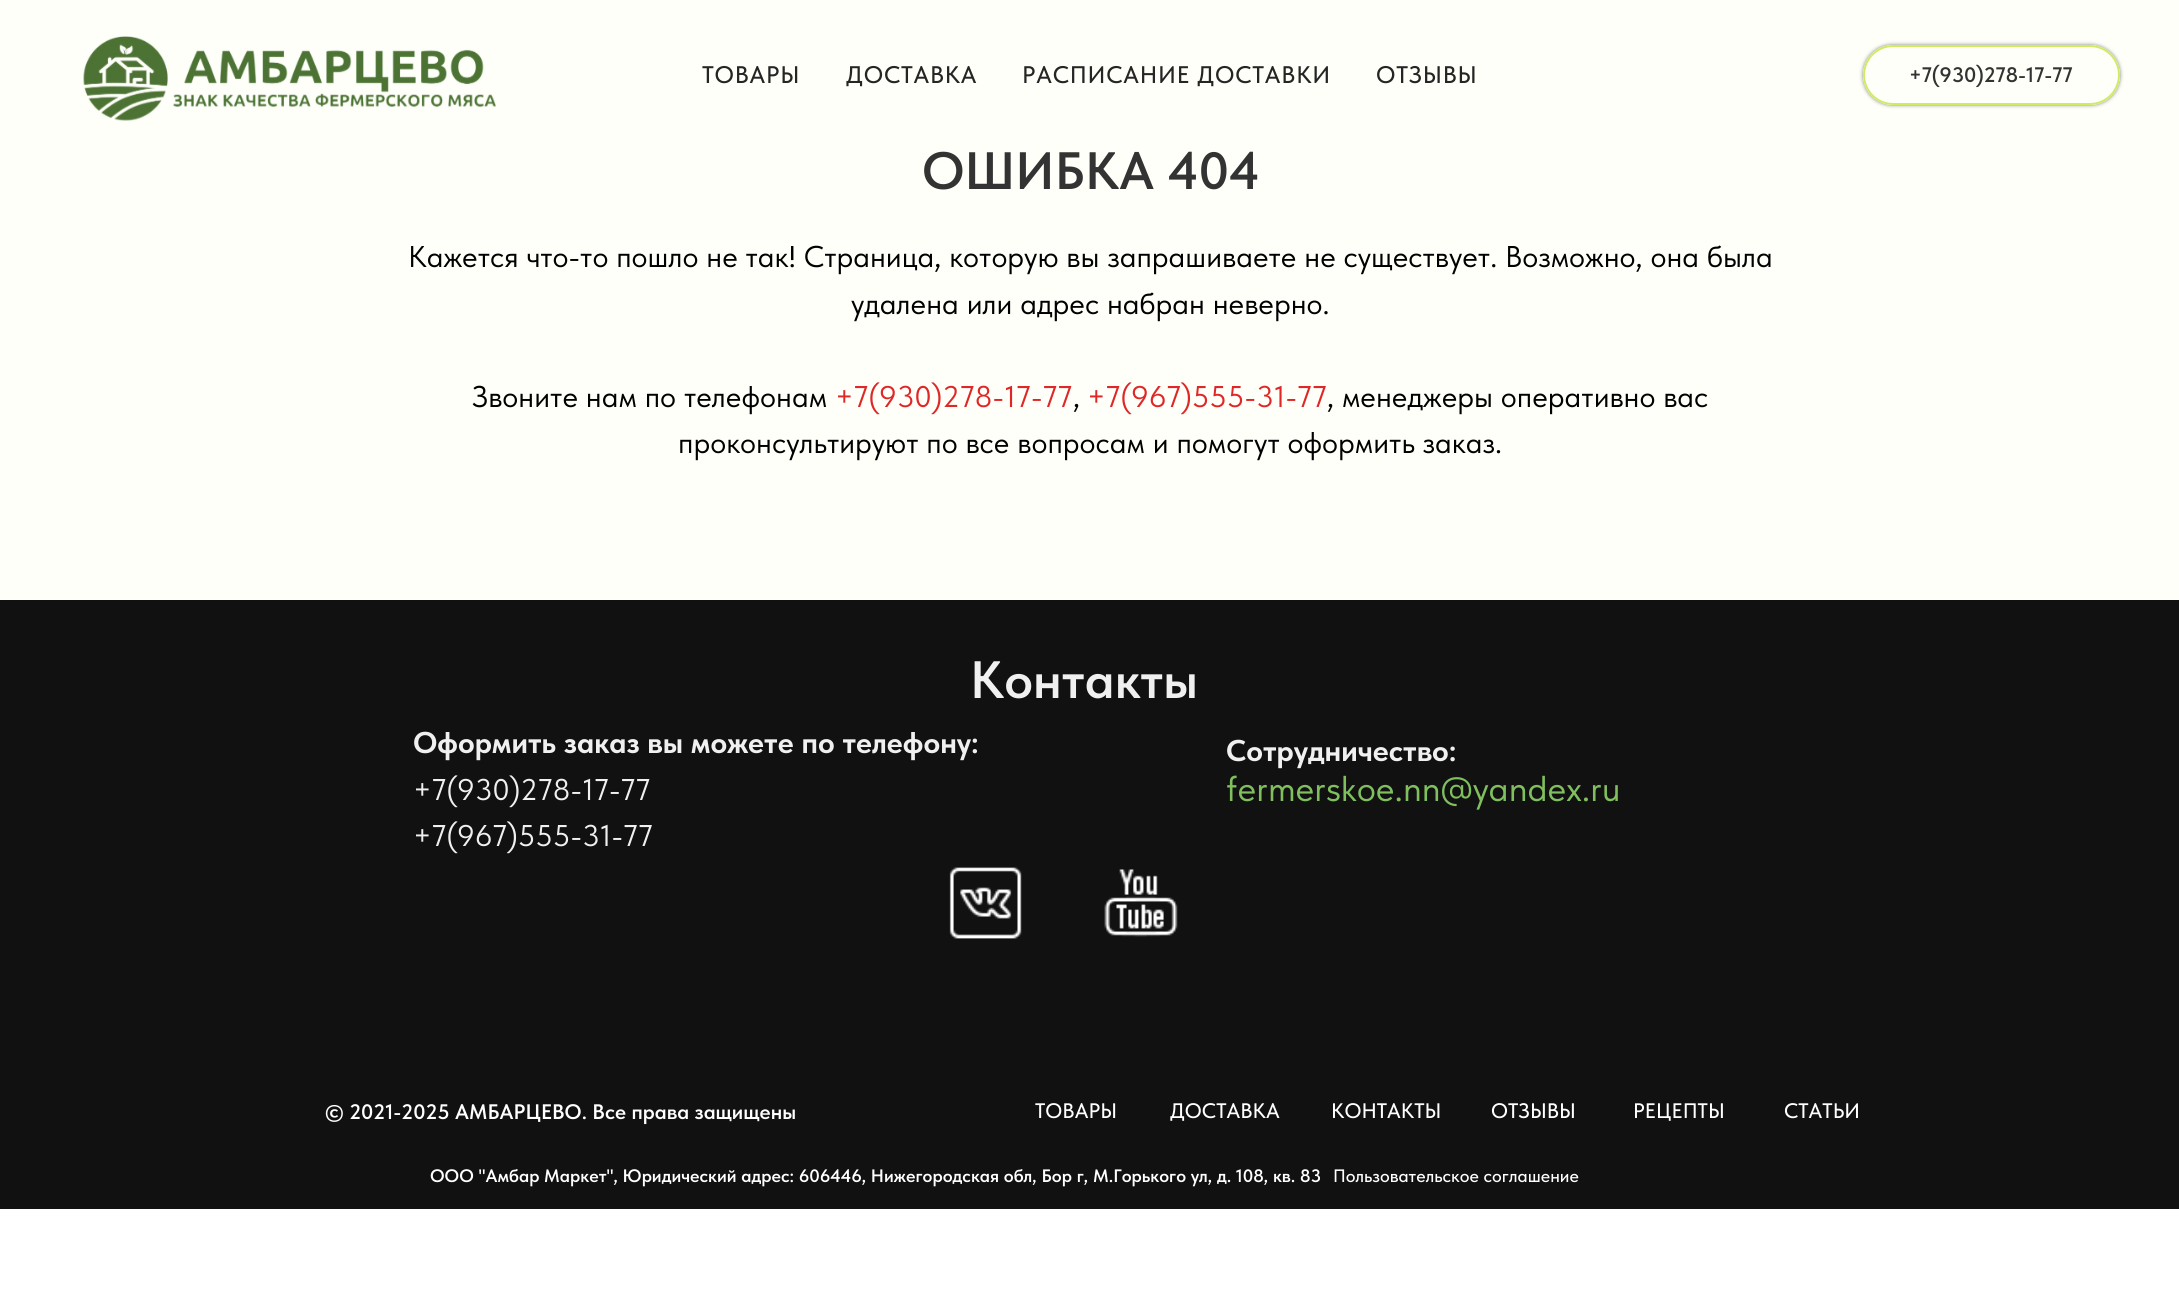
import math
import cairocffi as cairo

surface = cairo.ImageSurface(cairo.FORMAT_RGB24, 2179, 1313)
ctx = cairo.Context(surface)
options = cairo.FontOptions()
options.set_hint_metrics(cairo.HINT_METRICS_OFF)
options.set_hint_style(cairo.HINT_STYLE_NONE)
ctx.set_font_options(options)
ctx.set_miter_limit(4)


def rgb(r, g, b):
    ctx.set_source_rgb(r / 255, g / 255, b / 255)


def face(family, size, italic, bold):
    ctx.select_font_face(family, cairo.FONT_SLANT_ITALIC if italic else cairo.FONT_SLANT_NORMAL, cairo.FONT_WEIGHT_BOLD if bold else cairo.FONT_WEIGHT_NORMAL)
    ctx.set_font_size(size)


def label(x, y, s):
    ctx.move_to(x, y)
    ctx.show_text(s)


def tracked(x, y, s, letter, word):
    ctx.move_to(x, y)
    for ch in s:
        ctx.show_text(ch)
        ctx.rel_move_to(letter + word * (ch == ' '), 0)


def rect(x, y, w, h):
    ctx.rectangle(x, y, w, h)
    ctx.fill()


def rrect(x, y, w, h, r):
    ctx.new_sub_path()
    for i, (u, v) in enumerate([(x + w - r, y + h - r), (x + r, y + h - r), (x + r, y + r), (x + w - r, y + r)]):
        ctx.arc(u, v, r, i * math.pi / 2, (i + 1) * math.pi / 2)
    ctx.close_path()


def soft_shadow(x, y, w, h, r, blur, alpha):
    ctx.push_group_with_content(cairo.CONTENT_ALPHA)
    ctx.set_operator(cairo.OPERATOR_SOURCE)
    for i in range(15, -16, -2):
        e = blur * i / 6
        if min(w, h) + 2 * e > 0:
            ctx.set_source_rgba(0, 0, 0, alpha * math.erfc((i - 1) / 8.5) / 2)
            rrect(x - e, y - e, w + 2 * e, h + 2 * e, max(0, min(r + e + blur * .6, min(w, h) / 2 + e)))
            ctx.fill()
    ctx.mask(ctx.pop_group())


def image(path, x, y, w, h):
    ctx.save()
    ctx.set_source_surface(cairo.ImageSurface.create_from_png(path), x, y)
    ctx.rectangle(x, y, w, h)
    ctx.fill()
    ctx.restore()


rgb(255, 255, 255)
ctx.paint()
rgb(253, 255, 248)
rect(0, 0, 2179, 600)
image('image0.png', 83, 36, 413, 85)
face('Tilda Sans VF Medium', 24, 0, 0)
rgb(37, 37, 37)
tracked(702, 83, 'ТОВАРЫ', 0.75, 0)
tracked(846, 83, 'ДОСТАВКА', 0.75, 0)
tracked(1022, 83, 'РАСПИСАНИЕ ДОСТАВКИ', 0.75, 0)
tracked(1376, 83, 'ОТЗЫВЫ', 0.75, 0)
ctx.save()
ctx.set_fill_rule(cairo.FILL_RULE_EVEN_ODD)
ctx.new_path()
ctx.move_to(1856, 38)
ctx.line_to(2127, 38)
ctx.line_to(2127, 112)
ctx.line_to(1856, 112)
ctx.close_path()
ctx.move_to(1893, 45)
ctx.line_to(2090, 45)
ctx.curve_to(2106.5, 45, 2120, 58.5, 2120, 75)
ctx.curve_to(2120, 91.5, 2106.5, 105, 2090, 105)
ctx.line_to(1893, 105)
ctx.curve_to(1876.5, 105, 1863, 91.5, 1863, 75)
ctx.curve_to(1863, 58.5, 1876.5, 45, 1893, 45)
ctx.close_path()
ctx.clip()
rgb(0, 0, 0)
soft_shadow(1863, 45, 257, 60, 30, 2, 0.5)
ctx.restore()
rrect(1864, 46, 255, 58, 29)
rgb(208, 235, 99)
ctx.stroke()
face('Tilda Sans VF SemiBold', 21, 0, 0)
rgb(51, 51, 51)
label(1909, 82, '+7(930)278-17-77')
face('Tilda Sans VF SemiBold', 52.5, 0, 0)
label(922, 189, 'ОШИБКА 404')
face('Tilda Sans VF', 30, 0, 0)
rgb(0, 0, 0)
label(408, 267, 'Кажется что-то пошло не так! Страница, которую вы запрашиваете не существует. Возможно, она была')
label(851, 314, 'удалена или адрес набран неверно.')
label(472, 407, 'Звоните нам по телефонам')
rgb(223, 39, 39)
label(835, 407, '+7(930)278-17-77')
rgb(0, 0, 0)
label(1073, 407, ',')
rgb(223, 39, 39)
label(1087, 407, '+7(967)555-31-77')
rgb(0, 0, 0)
label(1327, 407, ', менеджеры оперативно вас')
label(678, 453, 'проконсультируют по все вопросам и помогут оформить заказ.')
rgb(17, 17, 17)
rect(0, 600, 2179, 609)
face('Tilda Sans VF SemiBold', 52.5, 0, 0)
rgb(240, 240, 240)
label(970, 698, 'Контакты')
face('Tilda Sans VF', 30, 0, 1)
label(413, 753, 'Оформить заказ вы можете по телефону:')
face('Tilda Sans VF', 30, 0, 0)
label(413, 800, '+7(930)278-17-77')
label(413, 846, '+7(967)555-31-77')
face('Tilda Sans VF', 30, 0, 1)
label(1226, 761, 'Сотрудничество:')
face('Tilda Sans VF', 36, 0, 0)
rgb(128, 191, 94)
label(1226, 801, 'fermerskoe.nn@yandex.ru')
image('image1.png', 949, 867, 73, 72)
image('image2.png', 1104, 869, 74, 68)
face('Tilda Sans VF SemiBold', 21, 0, 0)
rgb(255, 255, 255)
label(325, 1119, '© 2021-2025 АМБАРЦЕВО. Все права защищены')
face('Tilda Sans VF Medium', 21, 0, 0)
label(1035, 1118, 'ТОВАРЫ')
label(1170, 1118, 'ДОСТАВКА')
label(1331, 1118, 'КОНТАКТЫ')
label(1491, 1118, 'ОТЗЫВЫ')
label(1633, 1118, 'РЕЦЕПТЫ')
label(1784, 1118, 'СТАТЬИ')
face('Tilda Sans VF SemiBold', 18, 0, 0)
label(430, 1182, 'ООО "Амбар Маркет", Юридический адрес: 606446, Нижегородская обл, Бор г, М.Горького ул, д. 108, кв. 83')
face('Tilda Sans VF Medium', 18, 0, 0)
label(1333, 1182, 'Пользовательское соглашение')
surface.write_to_png('render.png')
